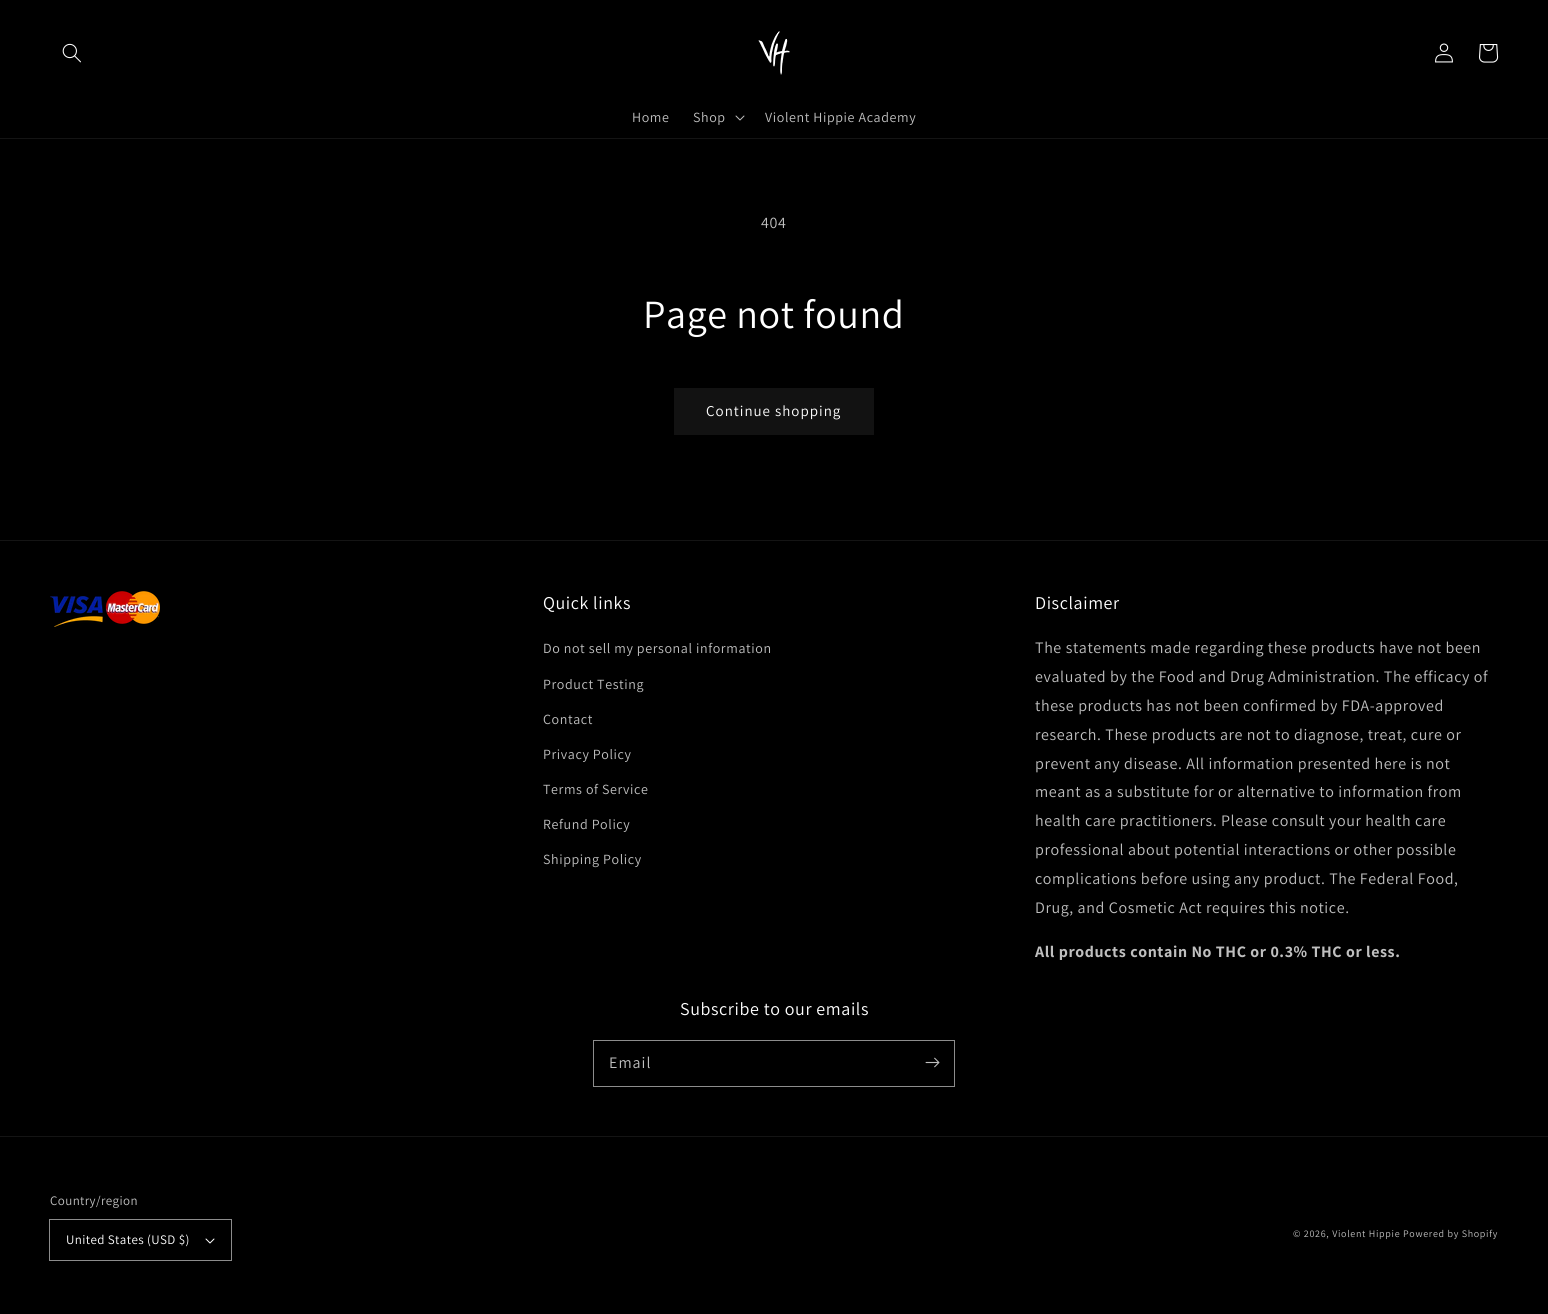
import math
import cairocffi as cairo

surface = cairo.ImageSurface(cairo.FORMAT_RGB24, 1548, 1314)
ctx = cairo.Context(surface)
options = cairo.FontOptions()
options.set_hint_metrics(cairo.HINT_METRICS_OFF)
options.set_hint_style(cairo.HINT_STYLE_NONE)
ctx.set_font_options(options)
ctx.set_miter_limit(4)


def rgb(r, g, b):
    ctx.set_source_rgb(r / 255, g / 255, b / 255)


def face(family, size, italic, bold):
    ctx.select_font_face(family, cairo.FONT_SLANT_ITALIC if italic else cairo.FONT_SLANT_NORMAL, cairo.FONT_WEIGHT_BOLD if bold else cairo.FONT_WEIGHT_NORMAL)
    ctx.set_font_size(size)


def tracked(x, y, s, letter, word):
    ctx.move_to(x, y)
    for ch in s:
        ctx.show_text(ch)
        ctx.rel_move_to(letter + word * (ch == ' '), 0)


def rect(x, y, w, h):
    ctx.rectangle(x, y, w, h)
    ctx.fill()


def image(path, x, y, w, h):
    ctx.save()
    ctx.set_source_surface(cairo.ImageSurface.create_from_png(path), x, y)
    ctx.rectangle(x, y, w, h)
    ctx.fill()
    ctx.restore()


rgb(0, 0, 0)
ctx.paint()
rgb(20, 20, 20)
rect(0, 138, 1548, 1)
image('image0.png', 62, 43, 19, 20)
image('image1.png', 758, 31, 32, 44)
image('image2.png', 1435, 43, 18, 20)
image('image3.png', 1479, 44, 20, 19)
face('Assistant', 14, 0, 0)
rgb(191, 191, 191)
tracked(632, 122, 'Home', 0.6, 0)
tracked(693, 122, 'Shop', 0.6, 0)
image('image4.png', 735, 115, 10, 6)
tracked(765, 122, 'Violent Hippie Academy', 0.6, 0)
face('Assistant', 16, 0, 0)
tracked(761, 228, '404', 0.6, 0)
face('Assistant', 40, 0, 0)
rgb(255, 255, 255)
tracked(643, 328, 'Page not found', 0.6, 0)
ctx.rectangle(674.5, 388.5, 199, 46)
rgb(18, 18, 18)
ctx.set_line_width(1)
ctx.stroke()
rect(675, 389, 198, 45)
face('Assistant', 15, 0, 0)
rgb(255, 255, 255)
tracked(706, 416, 'Continue shopping', 1, 0)
rgb(20, 20, 20)
rect(0, 540, 1548, 1)
image('image5.png', 50, 591, 110, 36)
face('Assistant', 18, 0, 0)
rgb(255, 255, 255)
tracked(543, 609, 'Quick links', 0.6, 0)
face('Assistant', 14, 0, 0)
rgb(191, 191, 191)
tracked(543, 653, 'Do not sell my personal information', 0.6, 0)
tracked(543, 689, 'Product Testing', 0.6, 0)
tracked(543, 724, 'Contact', 0.6, 0)
tracked(543, 759, 'Privacy Policy', 0.6, 0)
tracked(543, 794, 'Terms of Service', 0.6, 0)
tracked(543, 829, 'Refund Policy', 0.6, 0)
tracked(543, 864, 'Shipping Policy', 0.6, 0)
face('Assistant', 18, 0, 0)
rgb(255, 255, 255)
tracked(1035, 609, 'Disclaimer', 0.6, 0)
face('Assistant', 16, 0, 0)
rgb(191, 191, 191)
tracked(1035, 653, 'The statements made regarding these products have not been', 0.6, 0)
tracked(1035, 682, 'evaluated by the Food and Drug Administration. The efficacy of', 0.6, 0)
tracked(1035, 711, 'these products has not been confirmed by FDA-approved', 0.6, 0)
tracked(1035, 740, 'research. These products are not to diagnose, treat, cure or', 0.6, 0)
tracked(1035, 769, 'prevent any disease. All information presented here is not', 0.6, 0)
tracked(1035, 797, 'meant as a substitute for or alternative to information from', 0.6, 0)
tracked(1035, 826, 'health care practitioners. Please consult your health care', 0.6, 0)
tracked(1035, 855, 'professional about potential interactions or other possible', 0.6, 0)
tracked(1035, 884, 'complications before using any product. The Federal Food,', 0.6, 0)
tracked(1035, 913, 'Drug, and Cosmetic Act requires this notice.', 0.6, 0)
face('Assistant', 16, 0, 1)
tracked(1035, 957, 'All products contain No THC or 0.3% THC or less.', 0.6, 0)
face('Assistant', 18, 0, 0)
rgb(255, 255, 255)
tracked(680, 1015, 'Subscribe to our emails', 0.6, 0)
ctx.rectangle(593.5, 1040.5, 361, 46)
rgb(140, 140, 140)
ctx.stroke()
face('Assistant', 16, 0, 0)
rgb(191, 191, 191)
tracked(609, 1068, 'Email', 1, 0)
image('image6.png', 925, 1057, 15, 11)
rgb(20, 20, 20)
rect(0, 1136, 1548, 1)
face('Assistant', 13, 0, 0)
rgb(191, 191, 191)
tracked(50, 1205, 'Country/region', 0.4, 0)
ctx.rectangle(49.5, 1219.5, 182, 41)
rgb(140, 140, 140)
ctx.stroke()
rgb(255, 255, 255)
tracked(66, 1244, 'United States (USD $)', 0.4, 0)
image('image7.png', 205, 1238, 10, 6)
face('Assistant', 10, 0, 0)
rgb(191, 191, 191)
tracked(1293, 1237, '© 2026, Violent Hippie', 0.7, 0)
tracked(1403, 1237, 'Powered by Shopify', 0.7, 0)
surface.write_to_png('render.png')
